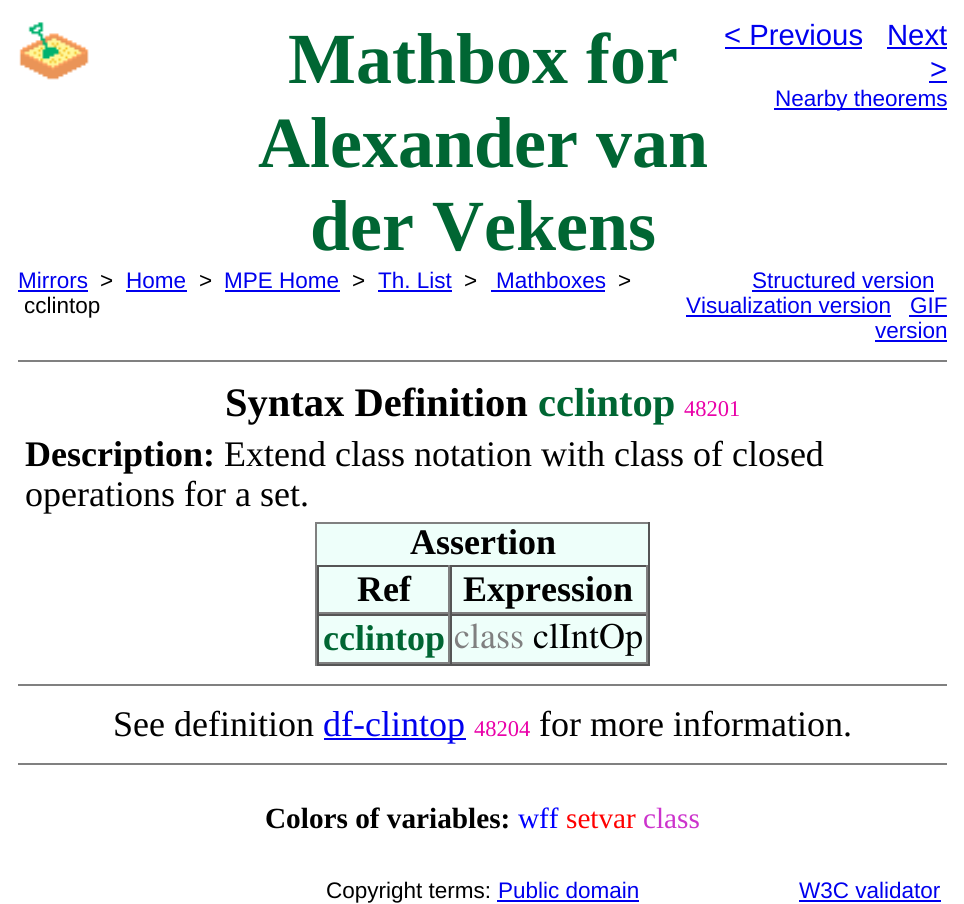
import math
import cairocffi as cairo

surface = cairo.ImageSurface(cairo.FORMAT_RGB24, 964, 904)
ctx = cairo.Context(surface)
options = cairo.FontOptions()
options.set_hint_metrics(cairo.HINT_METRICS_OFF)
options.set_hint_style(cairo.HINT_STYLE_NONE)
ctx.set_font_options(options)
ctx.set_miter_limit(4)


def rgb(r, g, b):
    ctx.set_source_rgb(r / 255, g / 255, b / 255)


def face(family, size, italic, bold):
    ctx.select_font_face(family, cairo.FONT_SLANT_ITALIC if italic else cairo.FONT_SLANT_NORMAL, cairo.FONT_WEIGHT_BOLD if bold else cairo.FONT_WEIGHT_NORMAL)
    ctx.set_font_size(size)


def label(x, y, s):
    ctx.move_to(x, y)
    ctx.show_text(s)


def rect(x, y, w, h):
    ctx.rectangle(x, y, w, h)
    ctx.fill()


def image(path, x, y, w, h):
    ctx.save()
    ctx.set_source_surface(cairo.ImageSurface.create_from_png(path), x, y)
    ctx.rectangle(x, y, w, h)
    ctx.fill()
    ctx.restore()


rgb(255, 255, 255)
ctx.paint()
image('image0.png', 19, 22, 70, 58)
face('Liberation Serif', 72, 0, 1)
rgb(0, 102, 51)
label(288, 83, 'Mathbox for')
label(258, 167, 'Alexander van')
label(310, 250, 'der Vekens')
face('Liberation Sans', 29.25, 0, 0)
rgb(0, 0, 238)
label(724, 45, '< Previous')
rect(725, 47, 137, 2)
label(887, 45, 'Next')
rect(887, 47, 60, 2)
label(930, 79, '>')
rect(929, 81, 18, 2)
rect(774, 108, 173, 2)
face('Liberation Sans', 22.5, 0, 0)
label(775, 106, 'Nearby theorems')
label(18, 288, 'Mirrors')
rect(18, 290, 70, 2)
rgb(0, 0, 0)
label(100, 288, '>')
rgb(0, 0, 238)
label(126, 288, 'Home')
rect(126, 290, 61, 2)
rgb(0, 0, 0)
label(199, 288, '>')
rgb(0, 0, 238)
label(224, 288, 'MPE Home')
rect(225, 290, 115, 2)
rgb(0, 0, 0)
label(352, 288, '>')
rgb(0, 0, 238)
label(378, 288, 'Th. List')
rect(378, 290, 74, 2)
rgb(0, 0, 0)
label(464, 288, '>')
rgb(0, 0, 238)
label(496, 288, 'Mathboxes')
rect(491, 290, 114, 2)
rgb(0, 0, 0)
label(618, 288, '>')
label(24, 313, 'cclintop')
rgb(0, 0, 238)
label(752, 288, 'Structured version')
rect(752, 290, 182, 2)
label(686, 313, 'Visualization version')
rect(686, 315, 205, 2)
label(910, 313, 'GIF')
rect(909, 315, 38, 2)
label(875, 338, 'version')
rect(875, 340, 72, 2)
rgb(128, 128, 128)
rect(18, 360, 929, 2)
face('Liberation Serif', 40.5, 0, 1)
rgb(0, 0, 0)
label(225, 416, 'Syntax Definition')
rgb(0, 102, 51)
label(538, 416, 'cclintop')
face('Liberation Serif', 22.5, 0, 0)
rgb(233, 0, 168)
label(684, 416, '48201')
face('Liberation Serif', 36, 0, 1)
rgb(0, 0, 0)
label(25, 466, 'Description:')
face('Liberation Serif', 36, 0, 0)
label(224, 466, 'Extend class notation with class of closed')
label(25, 506, 'operations for a set.')
rgb(238, 255, 250)
rect(317, 524, 331, 138)
rgb(128, 128, 128)
rect(315, 522, 335, 2)
rgb(85, 85, 85)
rect(648, 522, 2, 144)
rect(315, 664, 335, 2)
rgb(128, 128, 128)
rect(315, 522, 2, 144)
face('Liberation Serif', 36, 0, 1)
rgb(0, 0, 0)
label(410, 554, 'Assertion')
rgb(85, 85, 85)
rect(317, 565, 331, 2)
rgb(128, 128, 128)
rect(448, 565, 2, 49)
rect(317, 612, 133, 2)
rgb(85, 85, 85)
rect(317, 565, 2, 49)
rgb(0, 0, 0)
label(357, 601, 'Ref')
rgb(128, 128, 128)
rect(646, 565, 2, 49)
rect(450, 612, 198, 2)
rgb(85, 85, 85)
rect(450, 565, 2, 49)
rgb(0, 0, 0)
label(463, 601, 'Expression')
rgb(85, 85, 85)
rect(317, 614, 331, 2)
rgb(128, 128, 128)
rect(448, 614, 2, 50)
rect(317, 662, 133, 2)
rgb(85, 85, 85)
rect(317, 614, 2, 50)
rgb(0, 102, 51)
label(323, 650, 'cclintop')
rgb(128, 128, 128)
rect(646, 614, 2, 50)
rect(450, 662, 198, 2)
rgb(85, 85, 85)
rect(450, 614, 2, 50)
face('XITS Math', 36, 0, 0)
rgb(128, 128, 128)
label(454, 648, 'class')
rgb(0, 0, 0)
label(533, 648, 'clIntOp')
rgb(128, 128, 128)
rect(18, 684, 929, 2)
face('Liberation Serif', 36, 0, 0)
rgb(0, 0, 0)
label(113, 736, 'See definition')
rgb(0, 0, 238)
rect(324, 738, 142, 2)
label(323, 736, 'df-clintop')
face('Liberation Serif', 22.5, 0, 0)
rgb(233, 0, 168)
label(474, 736, '48204')
face('Liberation Serif', 36, 0, 0)
rgb(0, 0, 0)
label(539, 736, 'for more information.')
rgb(128, 128, 128)
rect(18, 763, 929, 2)
face('Liberation Serif', 29.25, 0, 1)
rgb(0, 0, 0)
label(265, 828, 'Colors of variables:')
face('Liberation Serif', 29.25, 0, 0)
rgb(0, 0, 255)
label(518, 828, 'wff')
rgb(255, 0, 0)
label(566, 828, 'setvar')
rgb(204, 51, 204)
label(643, 828, 'class')
face('Liberation Sans', 22.5, 0, 0)
rgb(0, 0, 0)
label(326, 898, 'Copyright terms:')
rgb(0, 0, 238)
label(498, 898, 'Public domain')
rect(497, 900, 142, 2)
label(799, 898, 'W3C validator')
rect(799, 900, 142, 2)
surface.write_to_png('render.png')
